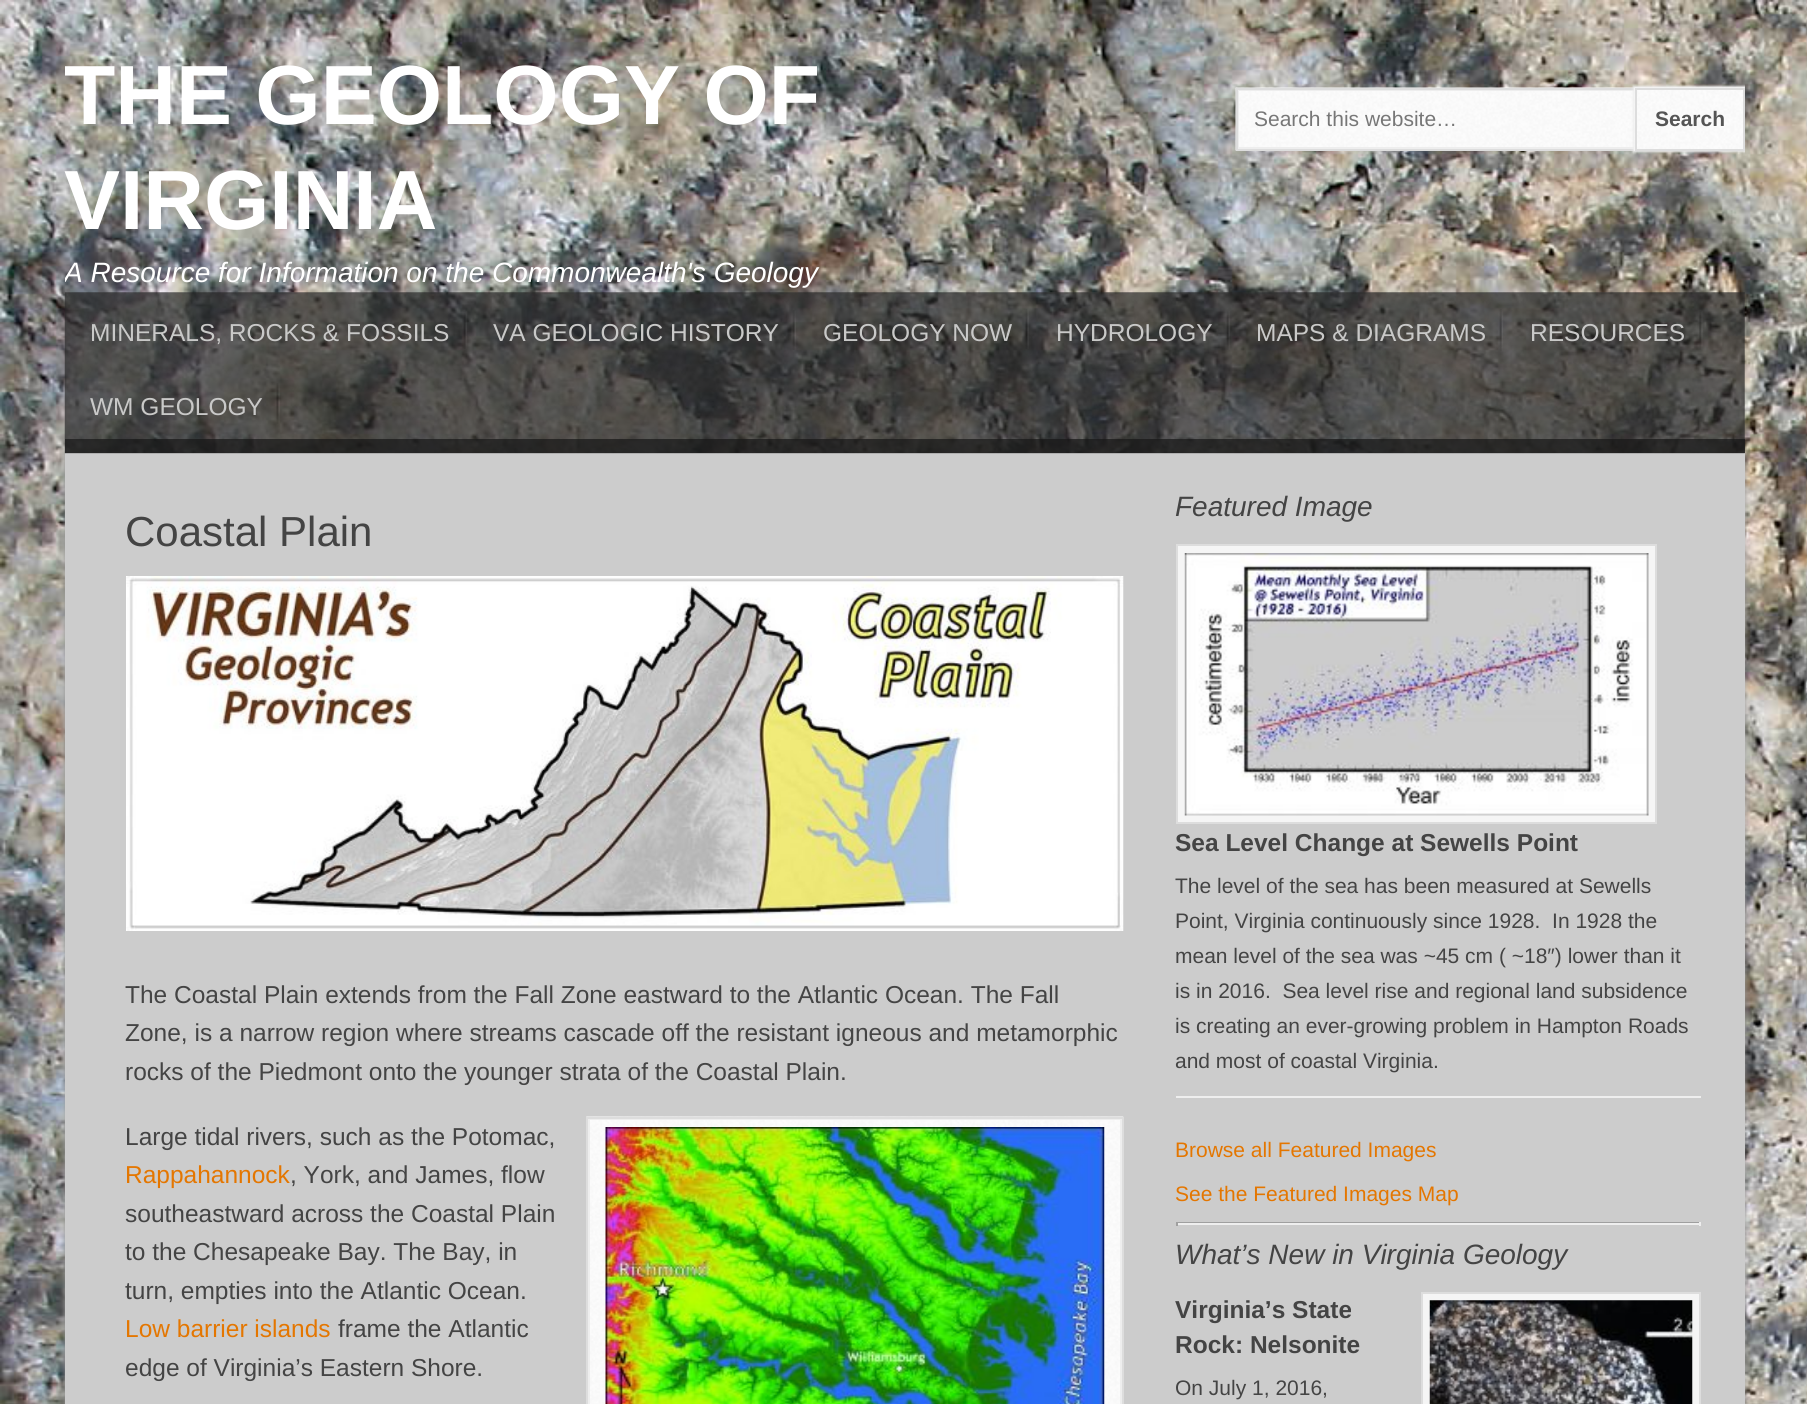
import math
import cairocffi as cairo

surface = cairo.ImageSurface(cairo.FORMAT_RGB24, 1807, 1404)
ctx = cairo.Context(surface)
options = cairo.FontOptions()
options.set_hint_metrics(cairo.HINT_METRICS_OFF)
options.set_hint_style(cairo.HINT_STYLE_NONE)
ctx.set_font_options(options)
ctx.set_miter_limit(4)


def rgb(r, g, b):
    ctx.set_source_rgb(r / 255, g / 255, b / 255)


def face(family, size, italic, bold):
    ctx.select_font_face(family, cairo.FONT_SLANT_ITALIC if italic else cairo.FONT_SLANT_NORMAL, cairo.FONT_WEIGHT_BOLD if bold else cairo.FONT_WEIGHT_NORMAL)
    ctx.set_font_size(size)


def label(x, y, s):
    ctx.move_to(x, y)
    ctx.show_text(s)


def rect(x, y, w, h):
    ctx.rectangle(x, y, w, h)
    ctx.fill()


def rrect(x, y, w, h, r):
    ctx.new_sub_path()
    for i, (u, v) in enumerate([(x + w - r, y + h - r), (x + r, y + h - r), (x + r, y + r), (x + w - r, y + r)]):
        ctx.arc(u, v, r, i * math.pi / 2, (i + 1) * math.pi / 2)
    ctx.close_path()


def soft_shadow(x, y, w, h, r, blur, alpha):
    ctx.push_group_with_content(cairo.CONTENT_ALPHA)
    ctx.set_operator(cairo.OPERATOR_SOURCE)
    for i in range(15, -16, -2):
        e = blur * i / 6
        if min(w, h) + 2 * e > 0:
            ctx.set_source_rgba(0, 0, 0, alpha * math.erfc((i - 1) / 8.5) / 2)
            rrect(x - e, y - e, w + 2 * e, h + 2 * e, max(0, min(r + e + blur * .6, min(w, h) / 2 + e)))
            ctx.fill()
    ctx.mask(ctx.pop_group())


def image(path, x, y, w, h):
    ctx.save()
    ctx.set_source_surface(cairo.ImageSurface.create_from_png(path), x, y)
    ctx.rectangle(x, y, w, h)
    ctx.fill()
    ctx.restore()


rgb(255, 255, 255)
ctx.paint()
image('image0.png', 0, 0, 1807, 1404)
ctx.save()
ctx.rectangle(65, 0, 1120, 292)
ctx.clip()
face('Liberation Sans', 84, 0, 1)
rgb(255, 255, 255)
label(64, 124, 'THE GEOLOGY OF')
ctx.restore()
face('Liberation Sans', 84, 0, 1)
rgb(255, 255, 255)
label(64, 229, 'VIRGINIA')
ctx.save()
ctx.rectangle(65, 0, 1120, 292)
ctx.clip()
face('Liberation Sans', 28, 1, 0)
label(64, 282, 'A Resource for Information on the Commonwealth\'s Geology')
ctx.restore()
image('image1.png', 1235, 87, 407, 64)
ctx.rectangle(1238, 90, 401, 58)
rgb(238, 238, 238)
ctx.stroke()
ctx.rectangle(1237, 89, 404, 61)
rgb(221, 221, 221)
ctx.stroke()
face('Liberation Sans', 21, 0, 0)
rgb(119, 119, 119)
label(1254, 126, 'Search this website…')
ctx.save()
ctx.rectangle(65, 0, 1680, 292)
ctx.clip()
rgb(238, 238, 238)
soft_shadow(1633, 86, 114, 66, 0, 1, 1)
ctx.restore()
image('image2.png', 1634, 87, 111, 64)
ctx.rectangle(1636, 89, 108, 61)
rgb(221, 221, 221)
ctx.stroke()
face('Liberation Sans', 21, 0, 1)
rgb(85, 85, 85)
label(1655, 126, 'Search')
rgb(153, 153, 153)
soft_shadow(65, 455, 1680, 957, 0, 2.5, 1)
rgb(204, 204, 204)
rect(65, 453, 1680, 951)
image('image3.png', 64, 292, 1681, 162)
ctx.set_source_rgba(0.09, 0.09, 0.09, 0.7)
rect(65, 439, 1680, 14)
image('image4.png', 463, 311, 4, 38)
face('Liberation Sans', 24.5, 0, 0)
rgb(201, 201, 200)
label(90, 341, 'MINERALS, ROCKS & FOSSILS')
image('image5.png', 792, 310, 4, 40)
label(493, 341, 'VA GEOLOGIC HISTORY')
image('image6.png', 1025, 309, 4, 40)
label(823, 341, 'GEOLOGY NOW')
image('image7.png', 1226, 309, 4, 41)
label(1056, 341, 'HYDROLOGY')
image('image8.png', 1499, 309, 4, 42)
label(1256, 341, 'MAPS & DIAGRAMS')
image('image9.png', 1699, 311, 4, 39)
label(1530, 341, 'RESOURCES')
image('image10.png', 276, 383, 4, 41)
label(90, 415, 'WM GEOLOGY')
face('Liberation Sans', 42, 0, 0)
rgb(68, 68, 68)
label(125, 546, 'Coastal Plain')
image('image11.png', 126, 576, 998, 355)
face('Liberation Sans', 24.5, 0, 0)
label(125, 1003, 'The Coastal Plain extends from the Fall Zone eastward to the Atlantic Ocean. The Fall')
label(125, 1041, 'Zone, is a narrow region where streams cascade off the resistant igneous and metamorphic')
label(125, 1080, 'rocks of the Piedmont onto the younger strata of the Coastal Plain.')
label(125, 1145, 'Large tidal rivers, such as the Potomac,')
rgb(228, 118, 0)
label(125, 1183, 'Rappahannock')
rgb(68, 68, 68)
label(290, 1183, ', York, and James, flow')
label(125, 1222, 'southeastward across the Coastal Plain')
label(125, 1260, 'to the Chesapeake Bay. The Bay, in')
label(125, 1299, 'turn, empties into the Atlantic Ocean.')
rgb(228, 118, 0)
label(125, 1337, 'Low barrier islands')
rgb(68, 68, 68)
label(338, 1337, 'frame the Atlantic')
label(125, 1376, 'edge of Virginia’s Eastern Shore.')
image('image12.png', 586, 1116, 538, 288)
ctx.rectangle(589, 1119, 532, 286)
rgb(238, 238, 238)
ctx.stroke()
ctx.rectangle(587, 1118, 536, 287)
rgb(221, 221, 221)
ctx.stroke()
image('image13.png', 605, 1127, 500, 277)
face('Liberation Sans', 28, 1, 0)
rgb(68, 68, 68)
label(1175, 516, 'Featured Image')
rgb(238, 238, 238)
rect(1176, 1096, 525, 2)
rgb(245, 245, 245)
ctx.rectangle(1177, 545, 479, 278)
ctx.fill_preserve()
rgb(221, 221, 221)
ctx.stroke()
image('image14.png', 1184, 553, 465, 263)
face('Liberation Sans', 24.5, 0, 1)
rgb(68, 68, 68)
label(1175, 851, 'Sea Level Change at Sewells Point')
face('Liberation Sans', 21, 0, 0)
label(1175, 893, 'The level of the sea has been measured at Sewells')
label(1175, 928, 'Point, Virginia continuously since 1928.  In 1928 the')
label(1175, 963, 'mean level of the sea was ~45 cm ( ~18″) lower than it')
label(1175, 998, 'is in 2016.  Sea level rise and regional land subsidence')
label(1175, 1033, 'is creating an ever-growing problem in Hampton Roads')
label(1175, 1068, 'and most of coastal Virginia.')
rgb(228, 118, 0)
label(1175, 1157, 'Browse all Featured Images')
label(1175, 1201, 'See the Featured Images Map')
rgb(159, 159, 159)
rect(1176, 1222, 525, 1)
rgb(238, 238, 238)
rect(1699, 1222, 2, 4)
rect(1176, 1223, 525, 2)
rgb(159, 159, 159)
rect(1176, 1222, 2, 4)
face('Liberation Sans', 28, 1, 0)
rgb(68, 68, 68)
label(1175, 1264, 'What’s New in Virginia Geology')
face('Liberation Sans', 24.5, 0, 1)
label(1175, 1318, 'Virginia’s State')
label(1175, 1353, 'Rock: Nelsonite')
rgb(245, 245, 245)
ctx.rectangle(1422, 1293, 278, 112)
ctx.fill_preserve()
rgb(221, 221, 221)
ctx.stroke()
image('image15.png', 1429, 1300, 264, 104)
face('Liberation Sans', 21, 0, 0)
rgb(68, 68, 68)
label(1175, 1395, 'On July 1, 2016,')
surface.write_to_png('render.png')
